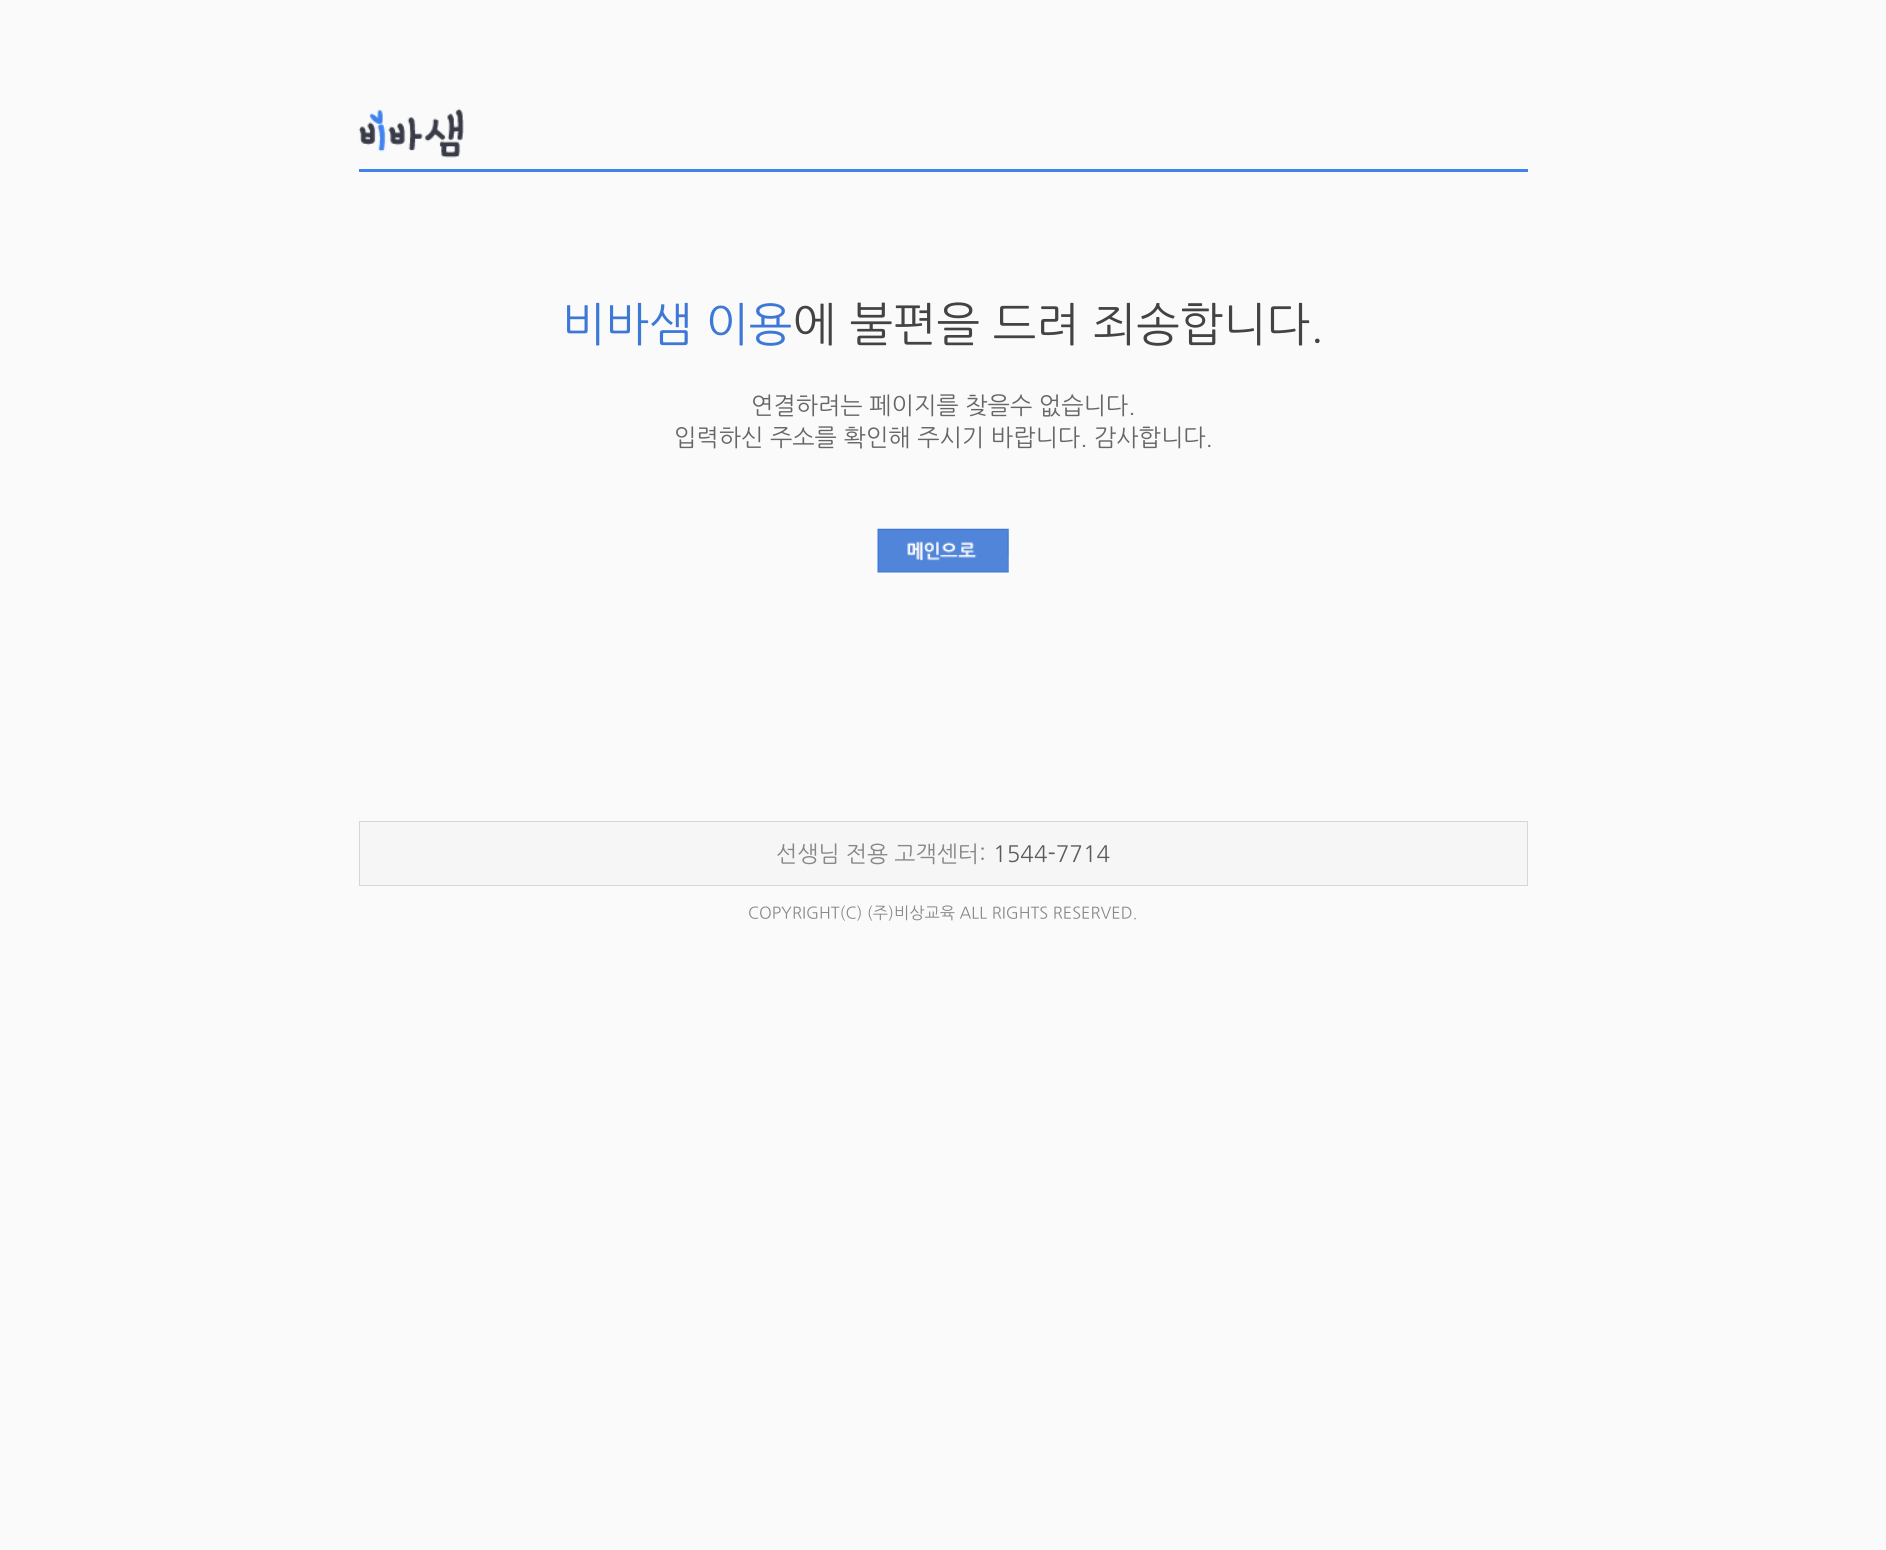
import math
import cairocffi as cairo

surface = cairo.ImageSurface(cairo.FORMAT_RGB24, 1886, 1550)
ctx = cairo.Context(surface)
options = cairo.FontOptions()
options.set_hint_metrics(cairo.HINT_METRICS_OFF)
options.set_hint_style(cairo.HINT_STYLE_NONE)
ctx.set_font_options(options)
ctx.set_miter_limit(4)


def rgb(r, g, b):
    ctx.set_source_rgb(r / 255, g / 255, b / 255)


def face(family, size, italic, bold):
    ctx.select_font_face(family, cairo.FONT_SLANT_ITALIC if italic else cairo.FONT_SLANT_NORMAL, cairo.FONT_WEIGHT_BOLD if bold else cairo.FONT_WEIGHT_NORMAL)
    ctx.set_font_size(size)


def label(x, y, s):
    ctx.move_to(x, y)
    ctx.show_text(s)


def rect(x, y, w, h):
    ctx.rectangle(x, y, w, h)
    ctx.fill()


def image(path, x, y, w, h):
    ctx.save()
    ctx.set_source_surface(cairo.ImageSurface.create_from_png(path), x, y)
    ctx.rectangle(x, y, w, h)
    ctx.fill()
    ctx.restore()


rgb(250, 250, 250)
ctx.paint()
rgb(64, 131, 237)
rect(359, 169, 1169, 3)
image('image0.png', 358, 108, 106, 50)
face('NanumGothic', 46.25, 0, 0)
rgb(61, 120, 214)
label(562, 339, '비바샘 이용')
rgb(67, 67, 67)
label(793, 339, '에 불편을 드려 죄송합니다.')
face('NanumGothic', 23.75, 0, 0)
rgb(102, 102, 102)
label(751, 413, '연결하려는 페이지를 찾을수 없습니다.')
label(674, 445, '입력하신 주소를 확인해 주시기 바랍니다. 감사합니다.')
image('image1.png', 877, 528, 132, 45)
rgb(246, 246, 246)
ctx.rectangle(359.5, 821.5, 1168, 64)
ctx.fill_preserve()
rgb(214, 214, 214)
ctx.set_line_width(1)
ctx.stroke()
face('NanumGothic', 22.5, 0, 0)
rgb(136, 136, 136)
label(776, 861, '선생님 전용 고객센터:')
rgb(91, 91, 91)
label(993, 861, '1544-7714')
face('NanumGothic', 16.25, 0, 0)
rgb(136, 136, 136)
label(748, 918, 'COPYRIGHT(C) (주)비상교육 ALL RIGHTS RESERVED.')
surface.write_to_png('render.png')
